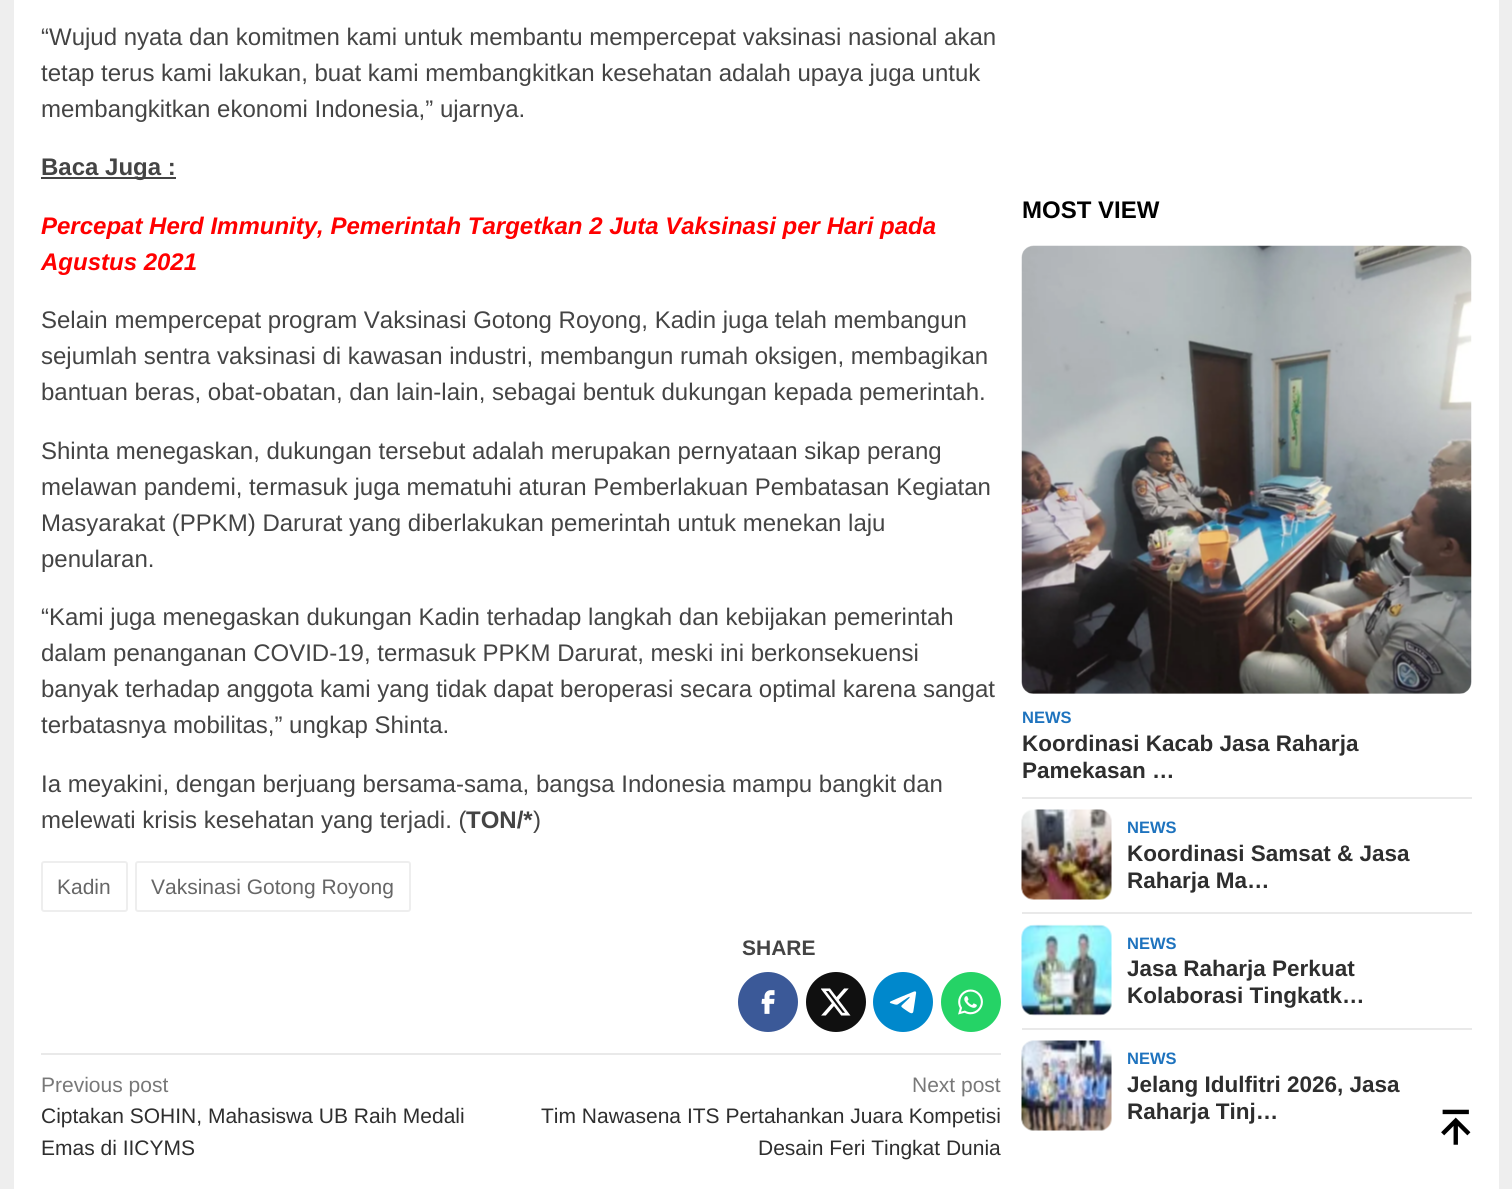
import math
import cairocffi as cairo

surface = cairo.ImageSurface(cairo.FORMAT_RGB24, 1512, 1189)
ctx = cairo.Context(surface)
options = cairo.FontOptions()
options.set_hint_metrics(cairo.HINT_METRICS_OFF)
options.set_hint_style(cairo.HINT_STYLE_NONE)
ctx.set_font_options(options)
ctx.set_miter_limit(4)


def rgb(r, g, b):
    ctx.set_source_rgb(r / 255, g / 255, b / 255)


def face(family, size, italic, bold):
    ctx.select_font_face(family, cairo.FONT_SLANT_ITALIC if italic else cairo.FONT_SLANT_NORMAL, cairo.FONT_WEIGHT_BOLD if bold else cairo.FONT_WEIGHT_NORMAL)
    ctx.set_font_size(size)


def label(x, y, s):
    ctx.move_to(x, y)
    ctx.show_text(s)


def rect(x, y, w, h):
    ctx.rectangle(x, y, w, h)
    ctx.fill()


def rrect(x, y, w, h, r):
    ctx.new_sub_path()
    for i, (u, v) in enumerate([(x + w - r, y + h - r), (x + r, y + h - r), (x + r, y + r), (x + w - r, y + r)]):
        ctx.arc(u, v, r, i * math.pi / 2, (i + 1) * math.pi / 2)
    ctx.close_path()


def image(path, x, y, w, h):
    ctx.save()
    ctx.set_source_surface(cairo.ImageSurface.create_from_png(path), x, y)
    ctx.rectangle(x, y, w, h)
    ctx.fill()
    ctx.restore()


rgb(238, 238, 238)
ctx.paint()
rgb(255, 255, 255)
rect(14, 0, 1485, 1189)
face('Liberation Sans', 24, 0, 0)
rgb(68, 68, 68)
label(41, 45, '“Wujud nyata dan komitmen kami untuk membantu mempercepat vaksinasi nasional akan')
label(41, 81, 'tetap terus kami lakukan, buat kami membangkitkan kesehatan adalah upaya juga untuk')
label(41, 117, 'membangkitkan ekonomi Indonesia,” ujarnya.')
rect(41, 177, 135, 2)
face('Liberation Sans', 24, 0, 1)
label(41, 175, 'Baca Juga :')
face('Liberation Sans', 24, 1, 1)
rgb(255, 0, 0)
label(41, 234, 'Percepat Herd Immunity, Pemerintah Targetkan 2 Juta Vaksinasi per Hari pada')
label(41, 270, 'Agustus 2021')
face('Liberation Sans', 24, 0, 0)
rgb(68, 68, 68)
label(41, 328, 'Selain mempercepat program Vaksinasi Gotong Royong, Kadin juga telah membangun')
label(41, 364, 'sejumlah sentra vaksinasi di kawasan industri, membangun rumah oksigen, membagikan')
label(41, 400, 'bantuan beras, obat-obatan, dan lain-lain, sebagai bentuk dukungan kepada pemerintah.')
label(41, 459, 'Shinta menegaskan, dukungan tersebut adalah merupakan pernyataan sikap perang')
label(41, 495, 'melawan pandemi, termasuk juga mematuhi aturan Pemberlakuan Pembatasan Kegiatan')
label(41, 531, 'Masyarakat (PPKM) Darurat yang diberlakukan pemerintah untuk menekan laju')
label(41, 567, 'penularan.')
label(41, 625, '“Kami juga menegaskan dukungan Kadin terhadap langkah dan kebijakan pemerintah')
label(41, 661, 'dalam penanganan COVID-19, termasuk PPKM Darurat, meski ini berkonsekuensi')
label(41, 697, 'banyak terhadap anggota kami yang tidak dapat beroperasi secara optimal karena sangat')
label(41, 733, 'terbatasnya mobilitas,” ungkap Shinta.')
label(41, 792, 'Ia meyakini, dengan berjuang bersama-sama, bangsa Indonesia mampu bangkit dan')
label(41, 828, 'melewati krisis kesehatan yang terjadi. (')
face('Liberation Sans', 24, 0, 1)
label(466, 828, 'TON/*')
face('Liberation Sans', 24, 0, 0)
label(533, 828, ')')
rrect(42, 862, 85, 49, 2)
rgb(238, 238, 238)
ctx.stroke()
face('Liberation Sans', 21, 0, 0)
rgb(102, 102, 102)
label(57, 894, 'Kadin')
rrect(136, 862, 274, 49, 2)
rgb(238, 238, 238)
ctx.stroke()
rgb(102, 102, 102)
label(151, 894, 'Vaksinasi Gotong Royong')
face('Liberation Sans', 21, 0, 1)
rgb(68, 68, 68)
label(742, 955, 'SHARE')
rgb(59, 89, 152)
ctx.new_path()
ctx.arc(768, 1002, 30, 0, 2 * math.pi)
ctx.fill()
image('image0.png', 761, 990, 14, 24)
rgb(16, 16, 16)
ctx.arc(836, 1002, 30, 0, 2 * math.pi)
ctx.fill()
image('image1.png', 821, 988, 30, 28)
rgb(0, 136, 204)
ctx.arc(903, 1002, 30, 0, 2 * math.pi)
ctx.fill()
image('image2.png', 889, 991, 28, 23)
rgb(37, 211, 102)
ctx.arc(971, 1002, 30, 0, 2 * math.pi)
ctx.fill()
image('image3.png', 958, 989, 25, 26)
rgb(233, 233, 233)
rect(41, 1053, 960, 2)
face('Liberation Sans', 21, 0, 0)
rgb(120, 120, 120)
label(41, 1092, 'Previous post')
rgb(46, 46, 46)
label(41, 1123, 'Ciptakan SOHIN, Mahasiswa UB Raih Medali')
label(41, 1155, 'Emas di IICYMS')
rgb(120, 120, 120)
label(912, 1092, 'Next post')
rgb(46, 46, 46)
label(541, 1123, 'Tim Nawasena ITS Pertahankan Juara Kompetisi')
label(758, 1155, 'Desain Feri Tingkat Dunia')
face('Liberation Sans', 24, 0, 1)
rgb(0, 0, 0)
label(1022, 218, 'MOST VIEW')
rgb(233, 233, 233)
rect(1022, 797, 450, 2)
image('image4.png', 1021, 245, 451, 449)
face('Liberation Sans', 16.5, 0, 1)
rgb(30, 115, 190)
label(1022, 723, 'NEWS')
face('Liberation Sans', 22.5, 0, 1)
rgb(46, 46, 46)
label(1022, 751, 'Koordinasi Kacab Jasa Raharja')
label(1022, 778, 'Pamekasan …')
rgb(233, 233, 233)
rect(1022, 912, 450, 2)
image('image5.png', 1021, 809, 91, 91)
face('Liberation Sans', 16.5, 0, 1)
rgb(30, 115, 190)
label(1127, 833, 'NEWS')
face('Liberation Sans', 22.5, 0, 1)
rgb(46, 46, 46)
label(1127, 861, 'Koordinasi Samsat & Jasa')
label(1127, 888, 'Raharja Ma…')
rgb(233, 233, 233)
rect(1022, 1028, 450, 2)
image('image6.png', 1021, 924, 91, 92)
face('Liberation Sans', 16.5, 0, 1)
rgb(30, 115, 190)
label(1127, 949, 'NEWS')
face('Liberation Sans', 22.5, 0, 1)
rgb(46, 46, 46)
label(1127, 976, 'Jasa Raharja Perkuat')
label(1127, 1003, 'Kolaborasi Tingkatk…')
image('image7.png', 1021, 1040, 91, 91)
face('Liberation Sans', 16.5, 0, 1)
rgb(30, 115, 190)
label(1127, 1064, 'NEWS')
face('Liberation Sans', 22.5, 0, 1)
rgb(46, 46, 46)
label(1127, 1092, 'Jelang Idulfitri 2026, Jasa')
label(1127, 1119, 'Raharja Tinj…')
image('image8.png', 1441, 1109, 30, 36)
surface.write_to_png('render.png')
